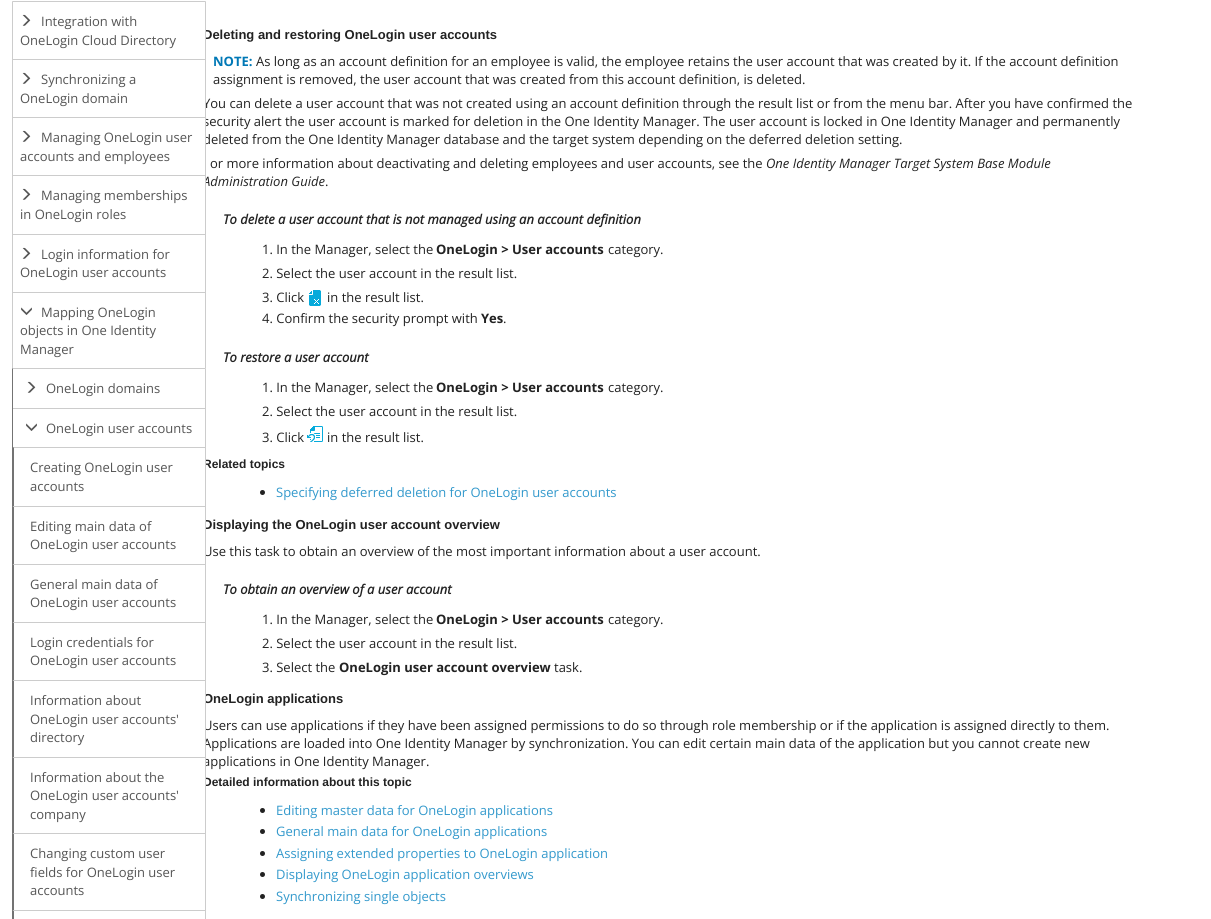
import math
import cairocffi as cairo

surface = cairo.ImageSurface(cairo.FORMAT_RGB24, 1211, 919)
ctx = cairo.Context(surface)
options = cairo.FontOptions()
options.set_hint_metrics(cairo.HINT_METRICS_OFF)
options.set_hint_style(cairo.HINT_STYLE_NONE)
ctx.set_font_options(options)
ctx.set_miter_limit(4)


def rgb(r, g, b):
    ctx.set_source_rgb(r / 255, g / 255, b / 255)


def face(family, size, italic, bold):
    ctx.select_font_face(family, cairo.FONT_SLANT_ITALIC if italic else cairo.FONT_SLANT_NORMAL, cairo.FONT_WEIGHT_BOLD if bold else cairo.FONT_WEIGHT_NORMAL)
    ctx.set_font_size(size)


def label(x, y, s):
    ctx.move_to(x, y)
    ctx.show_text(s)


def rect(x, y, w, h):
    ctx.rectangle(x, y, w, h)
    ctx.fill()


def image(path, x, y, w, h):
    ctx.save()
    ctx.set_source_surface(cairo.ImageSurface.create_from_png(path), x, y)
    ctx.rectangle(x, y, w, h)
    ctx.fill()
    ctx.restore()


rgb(255, 255, 255)
ctx.paint()
face('Liberation Sans', 13, 0, 1)
rgb(34, 34, 34)
label(203, 39, 'Deleting and restoring OneLogin user accounts')
rgb(255, 255, 255)
ctx.new_path()
ctx.move_to(13, 1.5)
ctx.line_to(205, 1.5)
ctx.curve_to(205.5, 1.5, 205.5, 1.5, 205.5, 2)
ctx.line_to(205.5, 59.5)
ctx.line_to(12.5, 59.5)
ctx.line_to(12.5, 2)
ctx.curve_to(12.5, 1.5, 12.5, 1.5, 13, 1.5)
ctx.close_path()
ctx.fill_preserve()
rgb(204, 204, 204)
ctx.set_line_width(1)
ctx.stroke()
image('image0.png', 22, 14, 9, 12)
face('Open Sans', 13, 0, 0)
rgb(85, 85, 85)
label(41, 26, 'Integration with')
label(20, 45, 'OneLogin Cloud Directory')
rgb(34, 34, 34)
label(203, 108, 'You can delete a user account that was not created using an account definition through the result list or from the menu bar. After you have confirmed the')
rgb(255, 255, 255)
rect(203, 98, 2, 5)
rgb(34, 34, 34)
label(203, 126, 'security alert the user account is marked for deletion in the One Identity Manager. The user account is locked in One Identity Manager and permanently')
ctx.rectangle(12.5, 59.5, 193, 58)
rgb(204, 204, 204)
ctx.stroke()
image('image0.png', 22, 72, 9, 12)
rgb(85, 85, 85)
label(41, 84, 'Synchronizing a')
label(20, 103, 'OneLogin domain')
rgb(34, 34, 34)
label(203, 144, 'deleted from the One Identity Manager database and the target system depending on the deferred deletion setting.')
rgb(255, 255, 255)
rect(203, 119, 2, 25)
ctx.rectangle(12.5, 117.5, 193, 58)
rgb(204, 204, 204)
ctx.stroke()
image('image0.png', 22, 130, 9, 12)
rgb(85, 85, 85)
label(41, 142, 'Managing OneLogin user')
label(20, 161, 'accounts and employees')
face('Open Sans', 13, 1, 0)
rgb(34, 34, 34)
label(203, 186, 'Administration Guide')
rgb(255, 255, 255)
rect(202, 181, 3, 5)
ctx.rectangle(12.5, 175.5, 193, 59)
rgb(204, 204, 204)
ctx.stroke()
image('image0.png', 22, 188, 9, 12)
face('Open Sans', 13, 0, 0)
rgb(85, 85, 85)
label(41, 200, 'Managing memberships')
label(20, 219, 'in OneLogin roles')
ctx.rectangle(12.5, 234.5, 193, 58)
rgb(204, 204, 204)
ctx.stroke()
image('image0.png', 22, 247, 9, 12)
rgb(85, 85, 85)
label(41, 259, 'Login information for')
label(20, 277, 'OneLogin user accounts')
ctx.rectangle(12.5, 292.5, 193, 76)
rgb(204, 204, 204)
ctx.stroke()
image('image1.png', 21, 307, 11, 8)
rgb(85, 85, 85)
label(41, 317, 'Mapping OneLogin')
label(20, 335, 'objects in One Identity')
label(20, 354, 'Manager')
rgb(255, 255, 255)
ctx.new_path()
ctx.move_to(13, 368)
ctx.line_to(205, 368)
ctx.curve_to(205.5, 368, 206, 368.5, 206, 369)
ctx.line_to(206, 409)
ctx.line_to(12, 409)
ctx.line_to(12, 369)
ctx.curve_to(12, 368.5, 12.5, 368, 13, 368)
ctx.close_path()
ctx.fill()
rgb(204, 204, 204)
ctx.new_path()
ctx.move_to(13, 369)
ctx.line_to(205, 369)
ctx.line_to(206, 368)
ctx.line_to(12, 368)
ctx.close_path()
ctx.fill()
ctx.new_path()
ctx.move_to(206, 409)
ctx.line_to(206, 368)
ctx.line_to(205, 369)
ctx.line_to(205, 408)
ctx.close_path()
ctx.fill()
rgb(115, 115, 115)
ctx.new_path()
ctx.move_to(13, 369)
ctx.line_to(12, 368)
ctx.line_to(12, 409)
ctx.line_to(13, 408)
ctx.close_path()
ctx.fill()
image('image0.png', 27, 381, 9, 12)
rgb(85, 85, 85)
label(46, 393, 'OneLogin domains')
rgb(204, 204, 204)
rect(12, 408, 194, 1)
rect(205, 408, 1, 40)
rect(12, 447, 194, 1)
rgb(115, 115, 115)
rect(12, 408, 1, 40)
image('image1.png', 26, 423, 11, 8)
rgb(85, 85, 85)
label(46, 433, 'OneLogin user accounts')
face('Liberation Sans', 12, 0, 1)
rgb(34, 34, 34)
label(203, 468, 'Related topics')
rgb(255, 255, 255)
rect(203, 459, 2, 9)
rgb(204, 204, 204)
ctx.new_path()
ctx.move_to(206, 507)
ctx.line_to(206, 447)
ctx.line_to(205, 448)
ctx.line_to(205, 506)
ctx.close_path()
ctx.fill()
rgb(115, 115, 115)
ctx.new_path()
ctx.move_to(14, 448)
ctx.line_to(13, 447)
ctx.line_to(12, 448)
ctx.line_to(12, 507)
ctx.line_to(14, 506)
ctx.close_path()
ctx.fill()
face('Open Sans', 13, 0, 0)
rgb(85, 85, 85)
label(30, 472, 'Creating OneLogin user')
label(30, 491, 'accounts')
face('Liberation Sans', 13, 0, 1)
rgb(34, 34, 34)
label(203, 529, 'Displaying the OneLogin user account overview')
face('Open Sans', 13, 0, 0)
label(203, 556, 'Use this task to obtain an overview of the most important information about a user account.')
rgb(255, 255, 255)
rect(203, 520, 2, 35)
rgb(204, 204, 204)
ctx.new_path()
ctx.move_to(12, 506)
ctx.line_to(206, 506)
ctx.line_to(205, 507)
ctx.line_to(14, 507)
ctx.close_path()
ctx.fill()
rect(205, 506, 1, 59)
rgb(115, 115, 115)
ctx.new_path()
ctx.move_to(12, 565)
ctx.line_to(12, 506)
ctx.line_to(14, 507)
ctx.line_to(14, 564)
ctx.close_path()
ctx.fill()
rgb(85, 85, 85)
label(30, 531, 'Editing main data of')
label(30, 549, 'OneLogin user accounts')
rgb(204, 204, 204)
ctx.new_path()
ctx.move_to(12, 564)
ctx.line_to(206, 564)
ctx.line_to(205, 565)
ctx.line_to(14, 565)
ctx.close_path()
ctx.fill()
rect(205, 564, 1, 59)
rgb(115, 115, 115)
ctx.new_path()
ctx.move_to(12, 623)
ctx.line_to(12, 564)
ctx.line_to(14, 565)
ctx.line_to(14, 622)
ctx.close_path()
ctx.fill()
rgb(85, 85, 85)
label(30, 589, 'General main data of')
label(30, 607, 'OneLogin user accounts')
rgb(204, 204, 204)
ctx.new_path()
ctx.move_to(12, 622)
ctx.line_to(206, 622)
ctx.line_to(205, 623)
ctx.line_to(14, 623)
ctx.close_path()
ctx.fill()
rect(205, 622, 1, 59)
rgb(115, 115, 115)
ctx.new_path()
ctx.move_to(12, 681)
ctx.line_to(12, 622)
ctx.line_to(14, 623)
ctx.line_to(14, 680)
ctx.close_path()
ctx.fill()
rgb(85, 85, 85)
label(30, 647, 'Login credentials for')
label(30, 665, 'OneLogin user accounts')
face('Liberation Sans', 13, 0, 1)
rgb(34, 34, 34)
label(203, 703, 'OneLogin applications')
face('Open Sans', 13, 0, 0)
label(203, 730, 'Users can use applications if they have been assigned permissions to do so through role membership or if the application is assigned directly to them.')
label(203, 748, 'Applications are loaded into One Identity Manager by synchronization. You can edit certain main data of the application but you cannot create new')
rgb(255, 255, 255)
rect(203, 695, 2, 53)
rgb(204, 204, 204)
ctx.new_path()
ctx.move_to(12, 680)
ctx.line_to(206, 680)
ctx.line_to(205, 681)
ctx.line_to(14, 681)
ctx.close_path()
ctx.fill()
rgb(34, 34, 34)
label(203, 766, 'applications in One Identity Manager.')
rgb(204, 204, 204)
rect(205, 680, 1, 78)
rgb(115, 115, 115)
ctx.new_path()
ctx.move_to(12, 758)
ctx.line_to(12, 680)
ctx.line_to(14, 681)
ctx.line_to(14, 757)
ctx.close_path()
ctx.fill()
rgb(85, 85, 85)
label(30, 705, 'Information about')
label(30, 724, 'OneLogin user accounts\'')
label(30, 742, 'directory')
face('Liberation Sans', 12, 0, 1)
rgb(34, 34, 34)
label(203, 786, 'Detailed information about this topic')
rgb(255, 255, 255)
rect(203, 759, 2, 27)
rgb(204, 204, 204)
ctx.new_path()
ctx.move_to(12, 757)
ctx.line_to(206, 757)
ctx.line_to(205, 758)
ctx.line_to(14, 758)
ctx.close_path()
ctx.fill()
rect(205, 757, 1, 77)
rgb(115, 115, 115)
ctx.new_path()
ctx.move_to(12, 834)
ctx.line_to(12, 757)
ctx.line_to(14, 758)
ctx.line_to(14, 833)
ctx.close_path()
ctx.fill()
face('Open Sans', 13, 0, 0)
rgb(85, 85, 85)
label(30, 782, 'Information about the')
label(30, 800, 'OneLogin user accounts\'')
label(30, 819, 'company')
rgb(204, 204, 204)
ctx.new_path()
ctx.move_to(12, 833)
ctx.line_to(206, 833)
ctx.line_to(205, 834)
ctx.line_to(14, 834)
ctx.close_path()
ctx.fill()
rect(205, 833, 1, 78)
rgb(115, 115, 115)
ctx.new_path()
ctx.move_to(12, 911)
ctx.line_to(12, 833)
ctx.line_to(14, 834)
ctx.line_to(14, 910)
ctx.close_path()
ctx.fill()
rgb(85, 85, 85)
label(30, 858, 'Changing custom user')
label(30, 877, 'fields for OneLogin user')
label(30, 895, 'accounts')
rgb(204, 204, 204)
ctx.new_path()
ctx.move_to(12, 910)
ctx.line_to(206, 910)
ctx.line_to(205, 911)
ctx.line_to(14, 911)
ctx.close_path()
ctx.fill()
rect(205, 910, 1, 9)
rgb(115, 115, 115)
ctx.new_path()
ctx.move_to(12, 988)
ctx.line_to(12, 910)
ctx.line_to(14, 911)
ctx.line_to(14, 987)
ctx.close_path()
ctx.fill()
face('Open Sans', 13, 0, 1)
rgb(0, 120, 182)
label(213, 66, 'NOTE:')
face('Open Sans', 13, 0, 0)
rgb(34, 34, 34)
label(256, 66, 'As long as an account definition for an employee is valid, the employee retains the user account that was created by it. If the account definition')
label(213, 84, 'assignment is removed, the user account that was created from this account definition, is deleted.')
label(210, 168, 'or more information about deactivating and deleting employees and user accounts, see the')
face('Open Sans', 13, 1, 0)
label(766, 168, 'One Identity Manager Target System Base Module')
face('Open Sans', 13, 0, 0)
label(325, 186, '.')
face('Open Sans', 13, 1, 1)
label(223, 224, 'To delete a user account that is not managed using an account definition')
face('Open Sans', 13, 0, 0)
label(262, 254, '1. In the Manager, select the')
face('Open Sans', 13, 0, 1)
label(436, 254, 'OneLogin > User accounts')
face('Open Sans', 13, 0, 0)
label(608, 254, 'category.')
label(262, 278, '2. Select the user account in the result list.')
label(262, 302, '3. Click')
image('image2.png', 309, 290, 12, 16)
label(327, 302, 'in the result list.')
label(262, 323, '4. Confirm the security prompt with')
face('Open Sans', 13, 0, 1)
label(481, 323, 'Yes')
face('Open Sans', 13, 0, 0)
label(503, 323, '.')
face('Open Sans', 13, 1, 1)
label(223, 362, 'To restore a user account')
face('Open Sans', 13, 0, 0)
label(262, 392, '1. In the Manager, select the')
face('Open Sans', 13, 0, 1)
label(436, 392, 'OneLogin > User accounts')
face('Open Sans', 13, 0, 0)
label(608, 392, 'category.')
label(262, 416, '2. Select the user account in the result list.')
label(262, 442, '3. Click')
image('image3.png', 307, 426, 16, 16)
label(327, 442, 'in the result list.')
ctx.new_path()
ctx.arc(262.5, 492.5, 2.5, 0, 2 * math.pi)
ctx.fill()
rgb(51, 153, 204)
label(276, 497, 'Specifying deferred deletion for OneLogin user accounts')
face('Open Sans', 13, 1, 1)
rgb(34, 34, 34)
label(223, 594, 'To obtain an overview of a user account')
face('Open Sans', 13, 0, 0)
label(262, 624, '1. In the Manager, select the')
face('Open Sans', 13, 0, 1)
label(436, 624, 'OneLogin > User accounts')
face('Open Sans', 13, 0, 0)
label(608, 624, 'category.')
label(262, 648, '2. Select the user account in the result list.')
label(262, 672, '3. Select the')
face('Open Sans', 13, 0, 1)
label(339, 672, 'OneLogin user account overview')
face('Open Sans', 13, 0, 0)
label(554, 672, 'task.')
ctx.new_path()
ctx.arc(262.5, 810.5, 2.5, 0, 2 * math.pi)
ctx.fill()
rgb(51, 153, 204)
label(276, 815, 'Editing master data for OneLogin applications')
rgb(34, 34, 34)
ctx.new_path()
ctx.arc(262.5, 831.5, 2.5, 0, 2 * math.pi)
ctx.fill()
rgb(51, 153, 204)
label(276, 836, 'General main data for OneLogin applications')
rgb(34, 34, 34)
ctx.new_path()
ctx.arc(262.5, 853.5, 2.5, 0, 2 * math.pi)
ctx.fill()
rgb(51, 153, 204)
label(276, 858, 'Assigning extended properties to OneLogin application')
rgb(34, 34, 34)
ctx.new_path()
ctx.arc(262.5, 874.5, 2.5, 0, 2 * math.pi)
ctx.fill()
rgb(51, 153, 204)
label(276, 879, 'Displaying OneLogin application overviews')
rgb(34, 34, 34)
ctx.new_path()
ctx.arc(262.5, 896.5, 2.5, 0, 2 * math.pi)
ctx.fill()
rgb(51, 153, 204)
label(276, 901, 'Synchronizing single objects')
surface.write_to_png('render.png')
